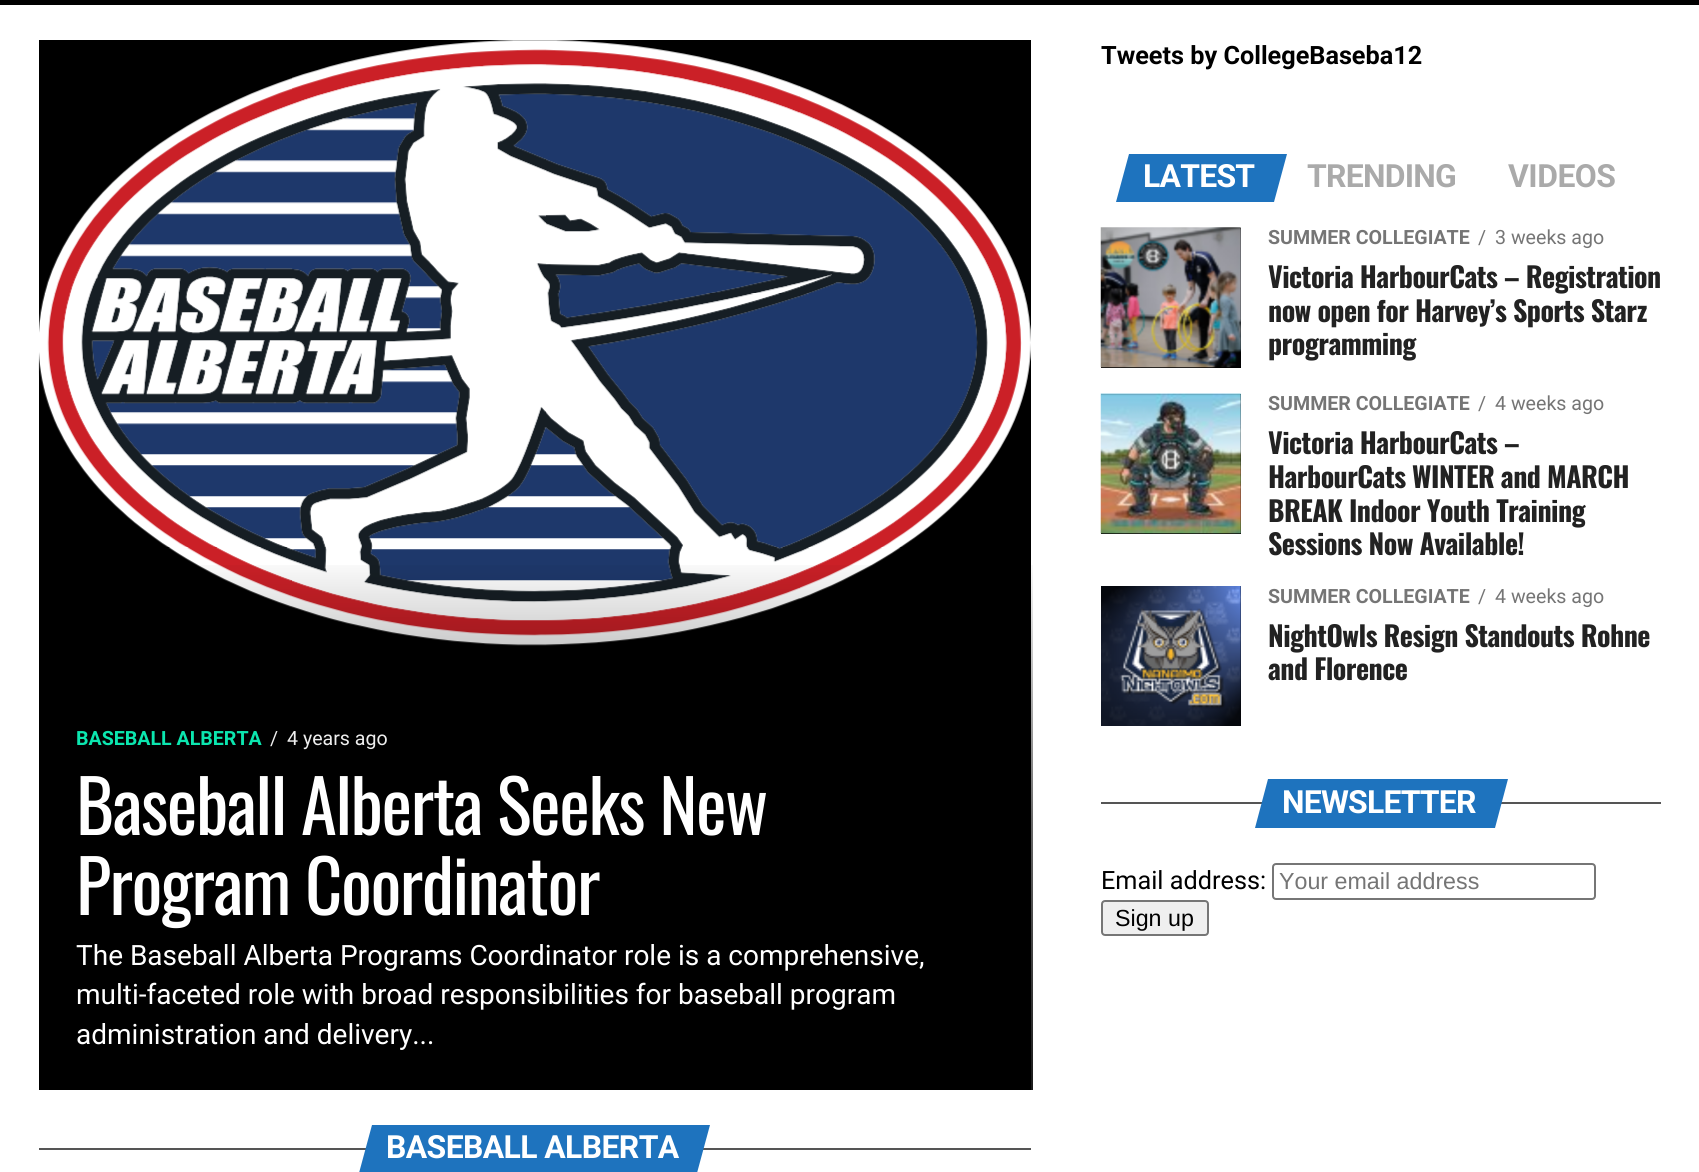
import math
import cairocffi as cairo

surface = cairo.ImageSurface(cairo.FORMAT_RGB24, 1699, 1172)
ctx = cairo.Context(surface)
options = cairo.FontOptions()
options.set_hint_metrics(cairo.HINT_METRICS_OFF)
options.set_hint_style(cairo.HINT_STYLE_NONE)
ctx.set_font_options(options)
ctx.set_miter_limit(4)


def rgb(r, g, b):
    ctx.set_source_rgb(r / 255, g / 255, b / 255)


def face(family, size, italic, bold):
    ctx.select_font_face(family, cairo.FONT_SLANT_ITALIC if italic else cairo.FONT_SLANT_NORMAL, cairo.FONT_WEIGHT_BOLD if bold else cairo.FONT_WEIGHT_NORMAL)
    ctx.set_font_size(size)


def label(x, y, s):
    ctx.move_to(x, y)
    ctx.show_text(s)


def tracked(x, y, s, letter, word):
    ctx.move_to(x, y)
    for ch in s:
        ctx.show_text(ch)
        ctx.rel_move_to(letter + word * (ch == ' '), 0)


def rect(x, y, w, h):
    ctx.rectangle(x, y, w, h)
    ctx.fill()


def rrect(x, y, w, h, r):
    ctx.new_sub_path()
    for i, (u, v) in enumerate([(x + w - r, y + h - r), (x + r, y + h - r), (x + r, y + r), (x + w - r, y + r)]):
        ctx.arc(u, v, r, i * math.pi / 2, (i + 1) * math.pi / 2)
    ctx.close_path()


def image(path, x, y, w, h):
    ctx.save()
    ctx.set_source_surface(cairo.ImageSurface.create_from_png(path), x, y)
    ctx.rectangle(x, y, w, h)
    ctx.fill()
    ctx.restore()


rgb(255, 255, 255)
ctx.paint()
rgb(0, 0, 0)
rect(0, 0, 1699, 5)
rect(39, 40, 992, 1050)
image('image0.png', 38, 40, 993, 606)
gradient = cairo.LinearGradient(536, 555, 536, 1090)
gradient.add_color_stop_rgba(0, 0, 0, 0, 0)
gradient.add_color_stop_rgba(0.5, 0, 0, 0, 0.6)
gradient.add_color_stop_rgba(1, 0, 0, 0, 0.9)
ctx.set_source(gradient)
rect(198, 565, 835, 525)
face('Roboto', 19.6, 0, 1)
rgb(11, 230, 175)
label(76, 745, 'BASEBALL ALBERTA')
face('Roboto', 19.6, 0, 0)
rgb(238, 238, 238)
label(270, 745, '/')
label(287, 745, '4 years ago')
face('Oswald', 72.75, 0, 0)
rgb(255, 255, 255)
tracked(76, 835, 'Baseball Alberta Seeks New', -1.45, 0)
tracked(76, 915, 'Program Coordinator', -1.45, 0)
face('Roboto', 28, 0, 0)
label(76, 965, 'The Baseball Alberta Programs Coordinator role is a comprehensive,')
label(76, 1004, 'multi-faceted role with broad responsibilities for baseball program')
label(76, 1044, 'administration and delivery...')
rgb(85, 85, 85)
rect(39, 1148, 992, 2)
rgb(30, 115, 190)
ctx.new_path()
ctx.move_to(372, 1125)
ctx.line_to(710, 1125)
ctx.line_to(697, 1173)
ctx.line_to(359, 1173)
ctx.close_path()
ctx.fill()
face('Roboto', 31.9, 0, 1)
rgb(255, 255, 255)
tracked(386, 1158, 'BASEBALL ALBERTA', -0.6, 0)
face('Roboto', 25.25, 0, 1)
rgb(0, 0, 0)
label(1101, 64, 'Tweets by CollegeBaseba12')
rgb(30, 115, 190)
ctx.new_path()
ctx.move_to(1129, 154)
ctx.line_to(1287, 154)
ctx.line_to(1274, 202)
ctx.line_to(1116, 202)
ctx.close_path()
ctx.fill()
face('Roboto', 31.9, 0, 1)
rgb(255, 255, 255)
tracked(1143, 187, 'LATEST', -0.75, 0)
rgb(170, 170, 170)
tracked(1307, 187, 'TRENDING', -0.75, 0)
tracked(1508, 187, 'VIDEOS', -0.5, 0)
rgb(0, 0, 0)
rect(1101, 228, 140, 140)
image('image1.png', 1100, 227, 141, 141)
face('Roboto', 19.6, 0, 1)
rgb(117, 117, 117)
label(1268, 244, 'SUMMER COLLEGIATE')
face('Roboto', 19.6, 0, 0)
label(1478, 244, '/')
label(1495, 244, '3 weeks ago')
face('Oswald', 28, 0, 1)
rgb(34, 34, 34)
tracked(1268, 288, 'Victoria HarbourCats – Registration', -0.55, 0)
tracked(1268, 322, 'now open for Harvey’s Sports Starz', -0.55, 0)
tracked(1268, 355, 'programming', -0.55, 0)
rgb(0, 0, 0)
rect(1101, 394, 140, 140)
image('image2.png', 1100, 393, 141, 141)
face('Roboto', 19.6, 0, 1)
rgb(117, 117, 117)
label(1268, 410, 'SUMMER COLLEGIATE')
face('Roboto', 19.6, 0, 0)
label(1478, 410, '/')
label(1495, 410, '4 weeks ago')
face('Oswald', 28, 0, 1)
rgb(34, 34, 34)
tracked(1268, 454, 'Victoria HarbourCats –', -0.55, 0)
tracked(1268, 488, 'HarbourCats WINTER and MARCH', -0.55, 0)
tracked(1268, 522, 'BREAK Indoor Youth Training', -0.55, 0)
tracked(1268, 555, 'Sessions Now Available!', -0.55, 0)
rgb(0, 0, 0)
rect(1240, 586, 1, 140)
image('image3.png', 1101, 586, 140, 140)
face('Roboto', 19.6, 0, 1)
rgb(117, 117, 117)
label(1268, 603, 'SUMMER COLLEGIATE')
face('Roboto', 19.6, 0, 0)
label(1478, 603, '/')
label(1495, 603, '4 weeks ago')
face('Oswald', 28, 0, 1)
rgb(34, 34, 34)
tracked(1268, 647, 'NightOwls Resign Standouts Rohne', -0.55, 0)
tracked(1268, 680, 'and Florence', -0.55, 0)
rgb(85, 85, 85)
rect(1101, 802, 560, 2)
rgb(30, 115, 190)
ctx.new_path()
ctx.move_to(1268, 779)
ctx.line_to(1508, 779)
ctx.line_to(1495, 828)
ctx.line_to(1255, 828)
ctx.close_path()
ctx.fill()
face('Roboto', 31.9, 0, 1)
rgb(255, 255, 255)
tracked(1282, 813, 'NEWSLETTER', -0.75, 0)
face('Roboto', 25.25, 0, 0)
rgb(0, 0, 0)
label(1101, 889, 'Email address:')
rrect(1273, 864, 322, 35, 3)
rgb(118, 118, 118)
ctx.stroke()
face('Liberation Sans', 23.25, 0, 0)
rgb(117, 117, 117)
label(1279, 889, 'Your email address')
rgb(239, 239, 239)
rrect(1102, 901, 106, 34, 3)
ctx.fill_preserve()
rgb(118, 118, 118)
ctx.stroke()
rgb(0, 0, 0)
label(1115, 926, 'Sign up')
surface.write_to_png('render.png')
